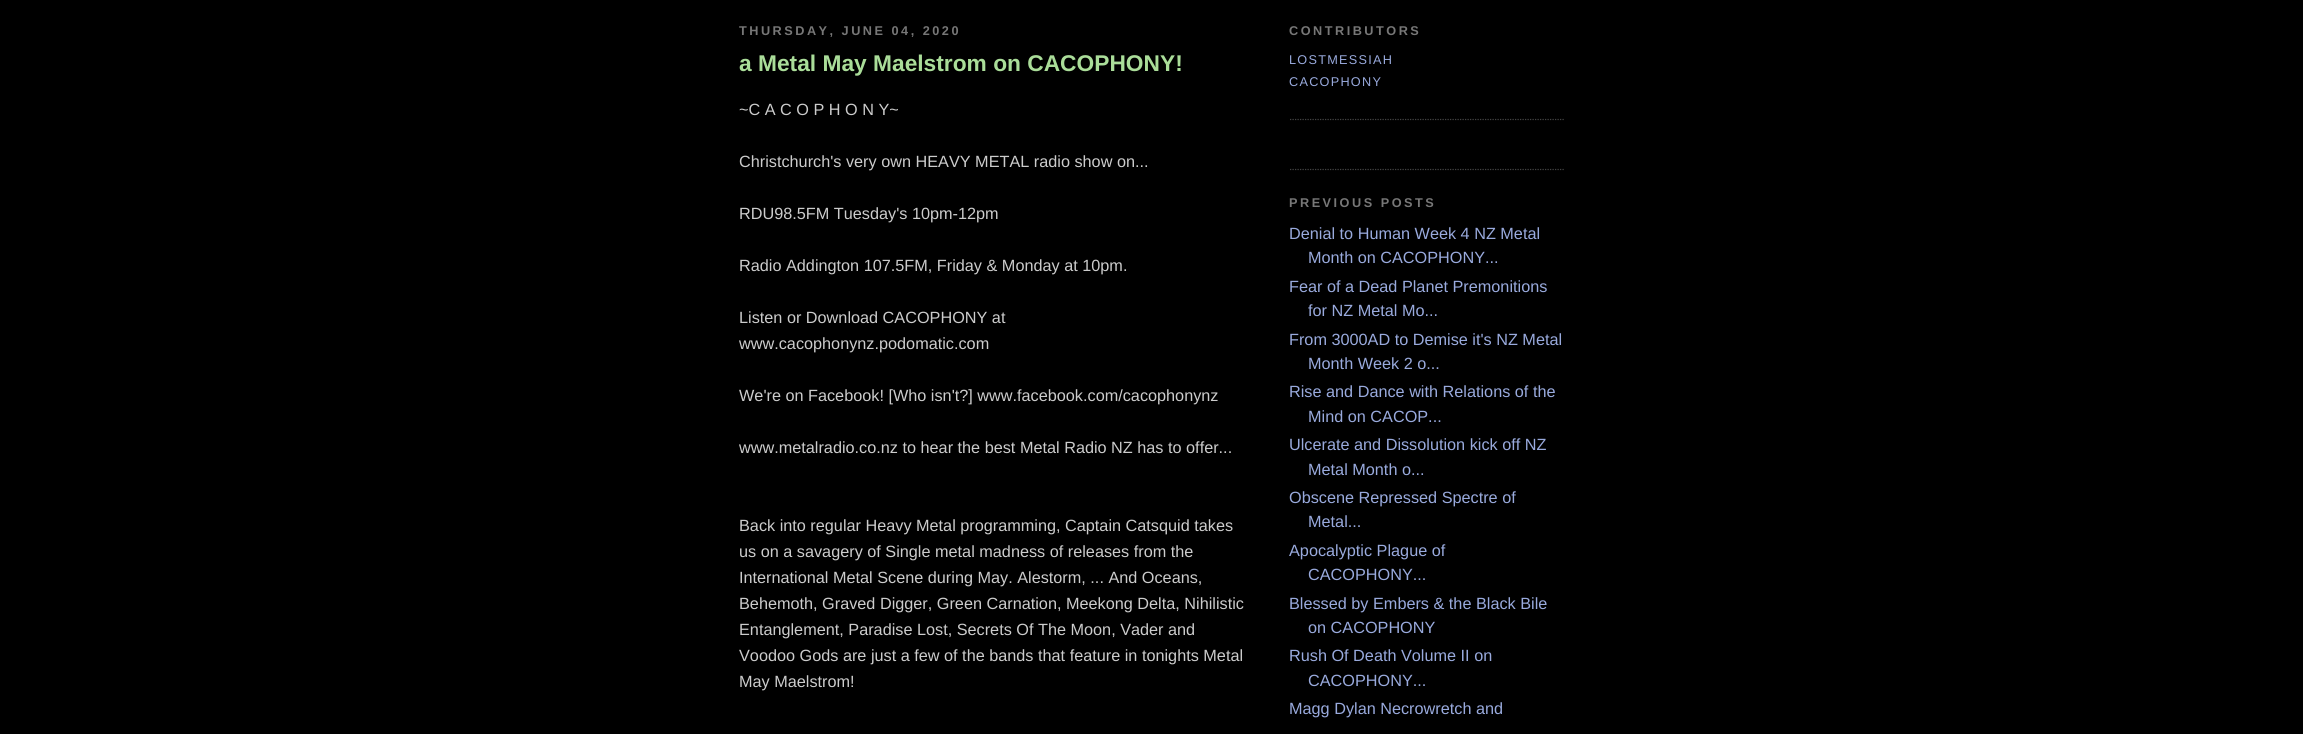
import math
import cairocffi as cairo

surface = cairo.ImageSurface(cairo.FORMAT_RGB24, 2303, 734)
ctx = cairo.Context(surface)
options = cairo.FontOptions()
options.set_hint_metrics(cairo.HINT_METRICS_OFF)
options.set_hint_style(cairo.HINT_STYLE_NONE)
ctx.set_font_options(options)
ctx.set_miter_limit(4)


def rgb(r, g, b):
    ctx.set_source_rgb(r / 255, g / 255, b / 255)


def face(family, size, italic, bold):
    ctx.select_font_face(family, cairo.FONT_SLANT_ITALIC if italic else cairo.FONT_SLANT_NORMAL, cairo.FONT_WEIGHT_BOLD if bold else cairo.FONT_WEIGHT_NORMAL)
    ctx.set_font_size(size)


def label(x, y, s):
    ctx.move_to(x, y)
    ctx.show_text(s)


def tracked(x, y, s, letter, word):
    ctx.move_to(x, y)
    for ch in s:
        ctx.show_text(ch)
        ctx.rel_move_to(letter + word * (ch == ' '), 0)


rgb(0, 0, 0)
ctx.paint()
face('Liberation Sans', 12.7, 0, 1)
rgb(119, 119, 119)
tracked(739, 35, 'THURSDAY, JUNE 04, 2020', 2.5, 0)
face('Liberation Sans', 22.75, 0, 1)
rgb(170, 221, 153)
label(739, 71, 'a Metal May Maelstrom on CACOPHONY!')
face('Liberation Sans', 16.25, 0, 0)
rgb(204, 204, 204)
label(739, 115, '~C A C O P H O N Y~')
label(739, 167, 'Christchurch\'s very own HEAVY METAL radio show on...')
label(739, 219, 'RDU98.5FM Tuesday\'s 10pm-12pm')
label(739, 271, 'Radio Addington 107.5FM, Friday & Monday at 10pm.')
label(739, 323, 'Listen or Download CACOPHONY at')
label(739, 349, 'www.cacophonynz.podomatic.com')
label(739, 401, 'We\'re on Facebook! [Who isn\'t?] www.facebook.com/cacophonynz')
label(739, 453, 'www.metalradio.co.nz to hear the best Metal Radio NZ has to offer...')
label(739, 531, 'Back into regular Heavy Metal programming, Captain Catsquid takes')
label(739, 557, 'us on a savagery of Single metal madness of releases from the')
label(739, 583, 'International Metal Scene during May. Alestorm, ... And Oceans,')
label(739, 609, 'Behemoth, Graved Digger, Green Carnation, Meekong Delta, Nihilistic')
label(739, 635, 'Entanglement, Paradise Lost, Secrets Of The Moon, Vader and')
label(739, 661, 'Voodoo Gods are just a few of the bands that feature in tonights Metal')
label(739, 687, 'May Maelstrom!')
ctx.new_path()
ctx.move_to(1290, 169.5)
ctx.line_to(1565, 169.5)
rgb(68, 68, 68)
ctx.set_line_width(1.2)
ctx.set_dash([1.25, 1.25])
ctx.stroke()
face('Liberation Sans', 12.7, 0, 1)
rgb(119, 119, 119)
tracked(1289, 35, 'CONTRIBUTORS', 2.5, 0)
ctx.new_path()
ctx.move_to(1290, 119.5)
ctx.line_to(1565, 119.5)
rgb(68, 68, 68)
ctx.stroke()
face('Liberation Sans', 12.7, 0, 0)
rgb(153, 170, 221)
tracked(1289, 64, 'LOSTMESSIAH', 1.25, 0)
tracked(1289, 86, 'CACOPHONY', 1.25, 0)
face('Liberation Sans', 12.7, 0, 1)
rgb(119, 119, 119)
tracked(1289, 207, 'PREVIOUS POSTS', 2.5, 0)
face('Liberation Sans', 16.25, 0, 0)
rgb(153, 170, 221)
label(1289, 239, 'Denial to Human Week 4 NZ Metal')
label(1308, 263, 'Month on CACOPHONY...')
label(1289, 292, 'Fear of a Dead Planet Premonitions')
label(1308, 316, 'for NZ Metal Mo...')
label(1289, 345, 'From 3000AD to Demise it\'s NZ Metal')
label(1308, 369, 'Month Week 2 o...')
label(1289, 397, 'Rise and Dance with Relations of the')
label(1308, 422, 'Mind on CACOP...')
label(1289, 450, 'Ulcerate and Dissolution kick off NZ')
label(1308, 475, 'Metal Month o...')
label(1289, 503, 'Obscene Repressed Spectre of')
label(1308, 527, 'Metal...')
label(1289, 556, 'Apocalyptic Plague of')
label(1308, 580, 'CACOPHONY...')
label(1289, 609, 'Blessed by Embers & the Black Bile')
label(1308, 633, 'on CACOPHONY')
label(1289, 661, 'Rush Of Death Volume II on')
label(1308, 686, 'CACOPHONY...')
label(1289, 714, 'Magg Dylan Necrowretch and')
surface.write_to_png('render.png')
